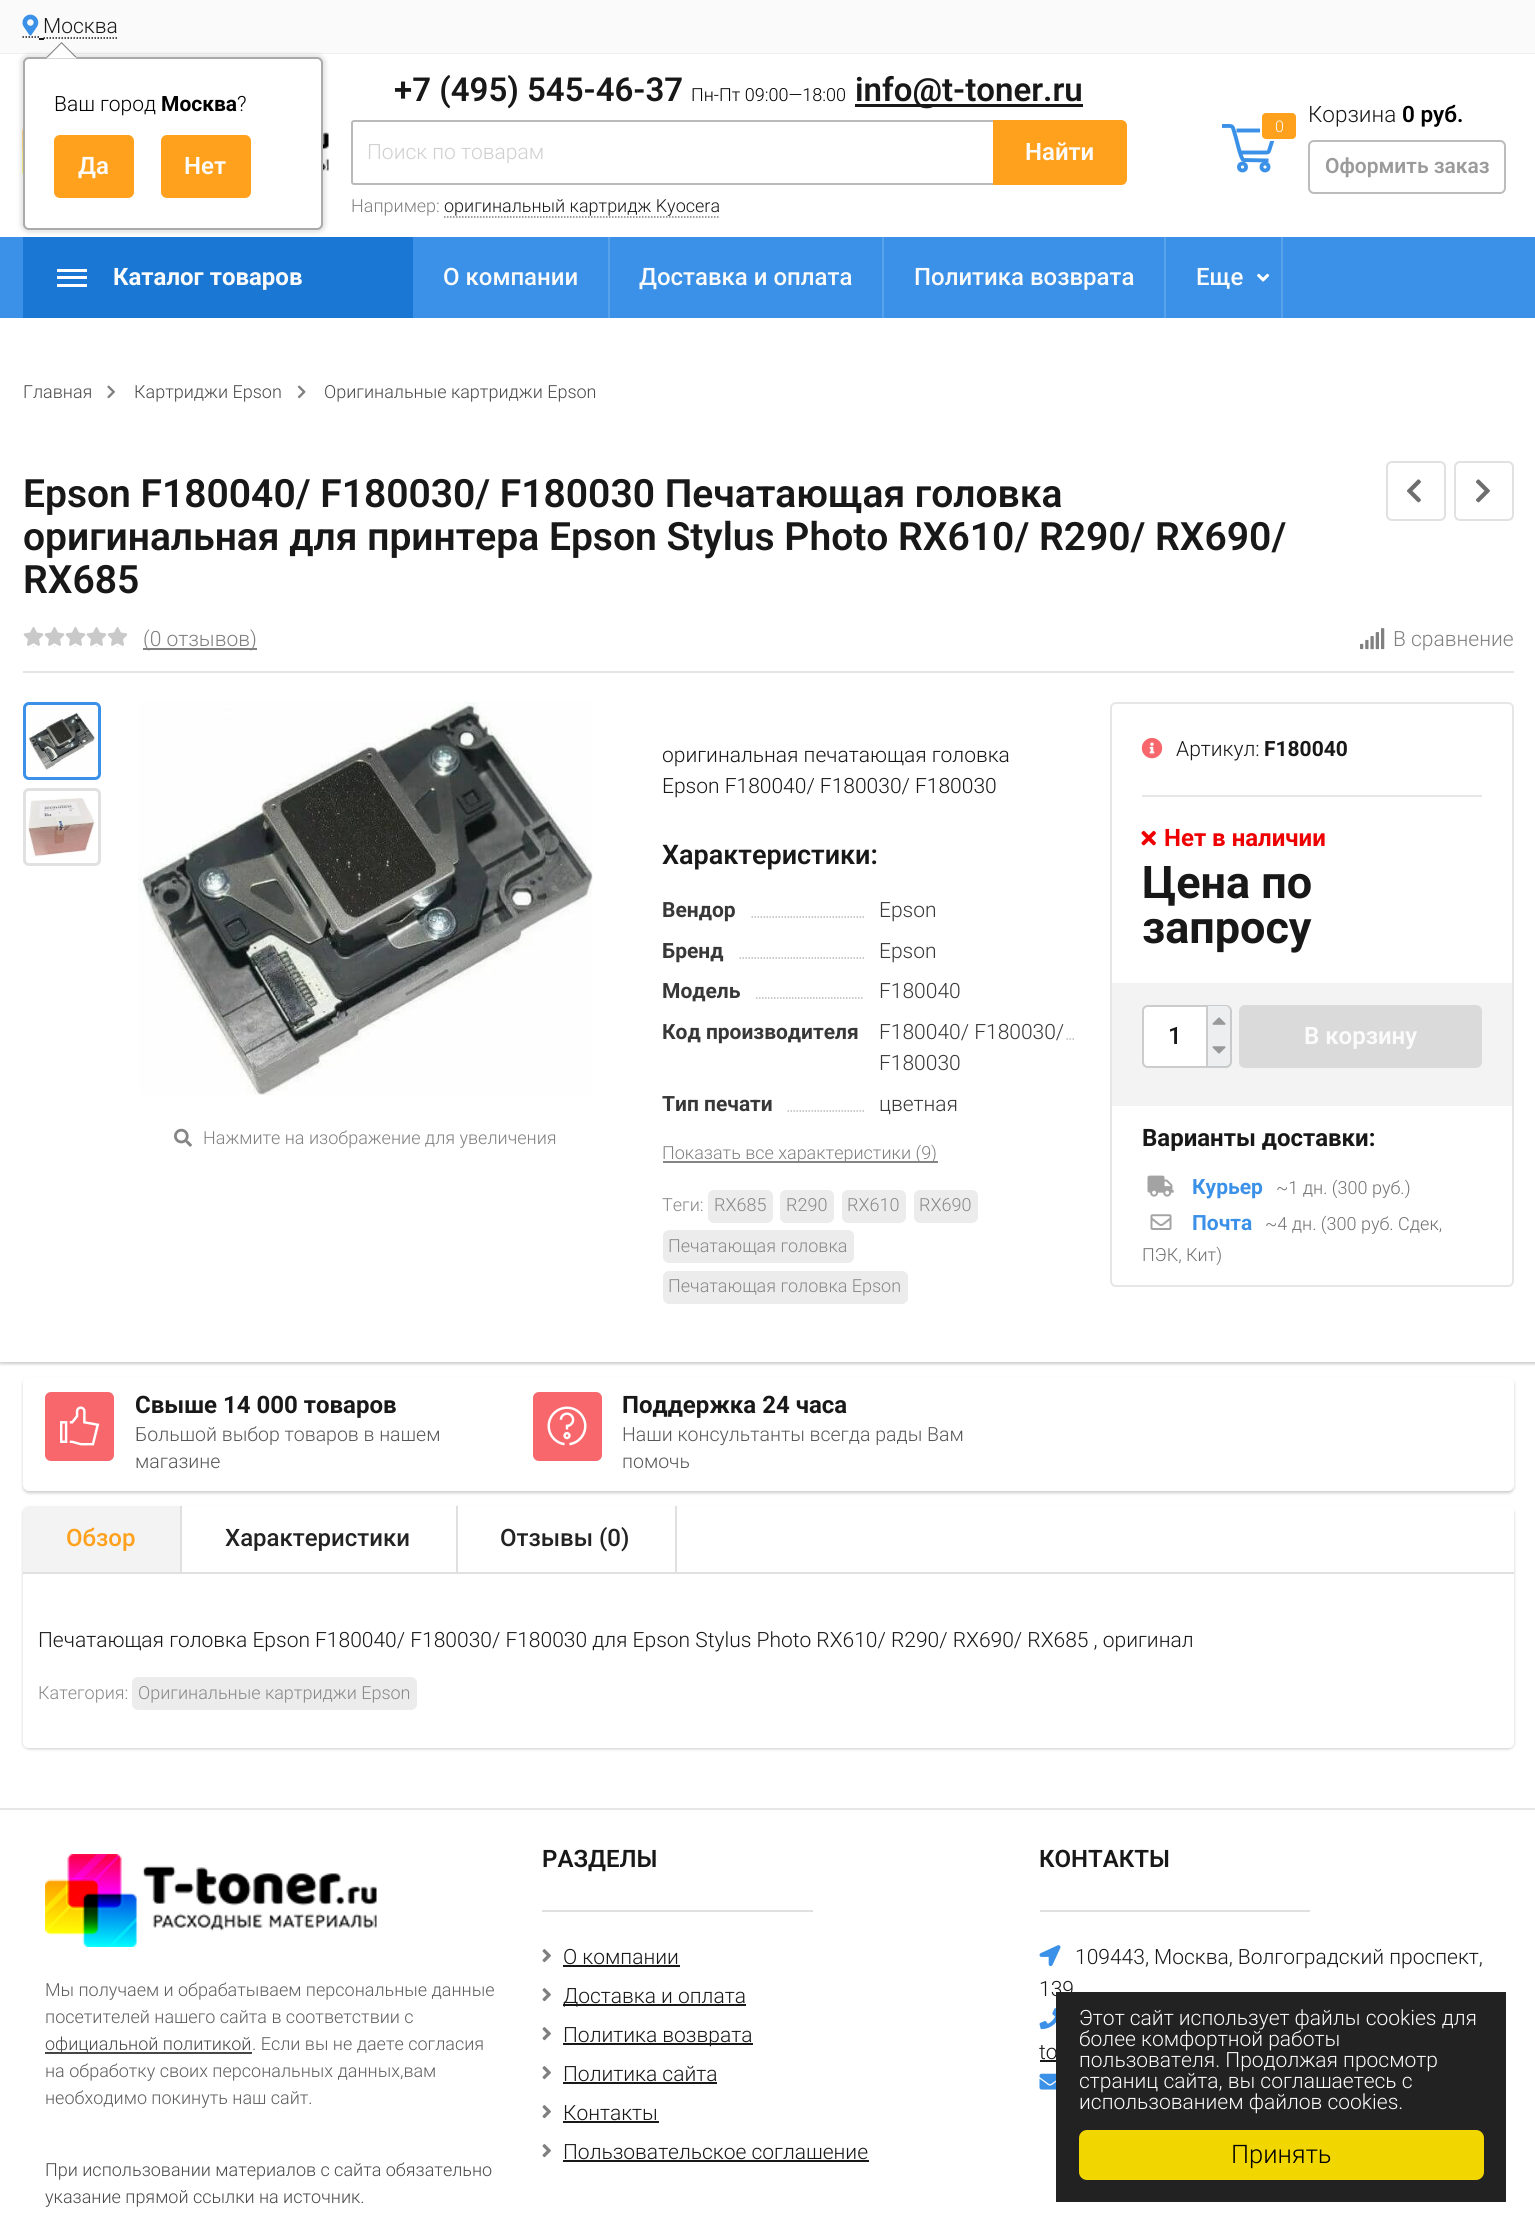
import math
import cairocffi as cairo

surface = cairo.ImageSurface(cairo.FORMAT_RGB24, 1535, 2232)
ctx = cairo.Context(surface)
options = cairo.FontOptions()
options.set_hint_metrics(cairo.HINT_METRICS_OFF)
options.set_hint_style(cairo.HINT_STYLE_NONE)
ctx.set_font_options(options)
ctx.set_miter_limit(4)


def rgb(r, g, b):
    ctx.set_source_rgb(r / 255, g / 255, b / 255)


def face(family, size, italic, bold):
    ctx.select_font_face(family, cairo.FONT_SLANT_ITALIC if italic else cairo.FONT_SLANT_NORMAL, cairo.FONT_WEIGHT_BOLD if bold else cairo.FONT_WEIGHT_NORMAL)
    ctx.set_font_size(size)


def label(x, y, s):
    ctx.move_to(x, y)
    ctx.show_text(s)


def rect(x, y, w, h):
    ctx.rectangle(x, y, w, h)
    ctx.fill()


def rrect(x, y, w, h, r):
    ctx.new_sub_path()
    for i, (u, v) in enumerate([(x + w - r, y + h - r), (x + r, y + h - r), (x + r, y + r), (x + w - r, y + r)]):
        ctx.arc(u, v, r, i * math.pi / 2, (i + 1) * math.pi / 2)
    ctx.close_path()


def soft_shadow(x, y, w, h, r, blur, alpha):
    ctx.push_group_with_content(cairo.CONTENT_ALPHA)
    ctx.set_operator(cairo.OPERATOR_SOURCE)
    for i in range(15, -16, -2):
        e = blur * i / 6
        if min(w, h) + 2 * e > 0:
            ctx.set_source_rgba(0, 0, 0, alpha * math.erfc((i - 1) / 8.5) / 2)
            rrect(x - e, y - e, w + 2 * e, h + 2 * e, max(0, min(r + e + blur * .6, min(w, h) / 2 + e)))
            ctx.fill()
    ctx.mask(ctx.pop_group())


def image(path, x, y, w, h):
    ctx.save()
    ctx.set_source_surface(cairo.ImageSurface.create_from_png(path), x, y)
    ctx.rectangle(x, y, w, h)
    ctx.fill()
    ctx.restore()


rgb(255, 255, 255)
ctx.paint()
rgb(250, 250, 250)
rect(0, 0, 1535, 53)
rgb(240, 240, 240)
rect(0, 53, 1535, 1)
ctx.new_path()
ctx.move_to(22.5, 37)
ctx.line_to(39, 37)
rgb(24, 24, 24)
ctx.set_line_width(1.5)
ctx.set_dash([1.5, 1.5])
ctx.stroke()
rect(39, 38, 5, 2)
ctx.new_path()
ctx.move_to(43.5, 38)
ctx.line_to(118.5, 38)
ctx.stroke()
image('image0.png', 22, 14, 17, 22)
face('Roboto Light', 21, 0, 0)
label(43, 33, 'Москва')
image('image1.png', 22, 128, 307, 47)
rgb(58, 145, 231)
rect(0, 237, 1535, 81)
rgb(26, 120, 212)
rect(23, 237, 390, 81)
rgb(0, 0, 0)
soft_shadow(20, 54, 306, 179, 9, 2, 0.1)
rgb(255, 255, 255)
rrect(24, 58, 298, 171, 5)
ctx.fill_preserve()
rgb(170, 170, 170)
ctx.set_line_width(2)
ctx.set_dash([])
ctx.stroke()
rgb(128, 128, 128)
ctx.new_path()
ctx.move_to(76.5, 57)
ctx.line_to(46.5, 57)
ctx.line_to(61.5, 42)
ctx.close_path()
ctx.fill()
rgb(255, 255, 255)
ctx.new_path()
ctx.move_to(76.5, 58.5)
ctx.line_to(46.5, 58.5)
ctx.line_to(61.5, 43.5)
ctx.close_path()
ctx.fill()
rgb(0, 0, 0)
label(54, 111, 'Ваш город')
face('Roboto', 21, 0, 1)
label(161, 111, 'Москва')
face('Roboto Light', 21, 0, 0)
label(237, 111, '?')
rgb(255, 161, 28)
rrect(55, 136, 78, 61, 5)
ctx.fill_preserve()
ctx.stroke()
face('Roboto SemiBold', 24, 0, 0)
rgb(251, 251, 251)
label(78, 174, 'Да')
rgb(255, 161, 28)
rrect(162, 136, 88, 61, 5)
ctx.fill_preserve()
ctx.stroke()
rgb(251, 251, 251)
label(184, 174, 'Нет')
face('Roboto SemiBold', 33, 0, 0)
rgb(24, 24, 24)
label(394, 101, '+7 (495) 545-46-37')
face('Roboto Light', 18, 0, 0)
rgb(0, 0, 0)
label(691, 101, 'Пн-Пт 09:00—18:00')
rgb(24, 24, 24)
rect(855, 104, 228, 3)
face('Roboto SemiBold', 33, 0, 0)
label(855, 101, 'info@t-toner.ru')
rrect(352, 121, 735, 63, 2)
rgb(186, 186, 186)
ctx.stroke()
face('Roboto Light', 21, 0, 0)
rgb(207, 207, 207)
label(367, 159, 'Поиск по товарам')
rgb(255, 161, 28)
ctx.new_path()
ctx.move_to(994, 121)
ctx.line_to(1121, 121)
ctx.curve_to(1124, 121, 1126, 123, 1126, 126)
ctx.line_to(1126, 179)
ctx.curve_to(1126, 182, 1124, 184, 1121, 184)
ctx.line_to(994, 184)
ctx.close_path()
ctx.fill_preserve()
ctx.stroke()
face('Roboto SemiBold', 24, 0, 0)
rgb(251, 251, 251)
label(1025, 160, 'Найти')
face('Roboto Light', 18, 0, 0)
rgb(128, 128, 128)
label(351, 212, 'Например:')
rgb(24, 24, 24)
label(444, 212, 'оригинальный картридж Kyocera')
ctx.new_path()
ctx.move_to(444, 217)
ctx.line_to(720, 217)
rgb(128, 128, 128)
ctx.set_line_width(1.5)
ctx.set_dash([1.5, 1.5])
ctx.stroke()
ctx.new_path()
ctx.move_to(1236.5, 130.5)
ctx.line_to(1274, 130.5)
ctx.curve_to(1274.5, 130.5, 1275, 131.5, 1275, 132)
ctx.line_to(1269, 151)
ctx.curve_to(1269, 151.5, 1268, 152.5, 1267, 152.5)
ctx.line_to(1240, 152.5)
ctx.move_to(1268.5, 160.5)
ctx.line_to(1243.5, 160)
ctx.curve_to(1241, 159.5, 1237, 141.5, 1236, 138)
ctx.curve_to(1231.5, 124, 1235, 126, 1222, 126)
rgb(58, 145, 231)
ctx.set_line_width(3.9)
ctx.set_dash([])
ctx.stroke()
ctx.arc(1242.5, 167, 3.5, 0, 2 * math.pi)
ctx.stroke()
ctx.arc(1265, 167, 3.5, 0, 2 * math.pi)
ctx.stroke()
rgb(255, 161, 28)
rrect(1261, 112, 36, 28, 5)
ctx.fill_preserve()
rgb(255, 255, 255)
ctx.set_line_width(2)
ctx.stroke()
face('Roboto Light', 16, 0, 0)
rgb(251, 251, 251)
label(1275, 132, '0')
face('Roboto Light', 22.5, 0, 0)
rgb(24, 24, 24)
label(1308, 122, 'Корзина')
face('Roboto SemiBold', 22.5, 0, 0)
rgb(0, 0, 0)
label(1402, 122, '0 руб.')
rrect(1309, 141, 196, 52, 5)
rgb(188, 188, 188)
ctx.stroke()
face('Roboto SemiBold', 21, 0, 0)
rgb(155, 155, 155)
label(1325, 173, 'Оформить заказ')
rgb(255, 255, 255)
rect(57, 269, 30, 3)
rect(57, 276, 30, 3)
rect(57, 284, 30, 3)
face('Roboto', 24, 0, 1)
rgb(251, 251, 251)
label(113, 285, 'Каталог товаров')
rgb(88, 162, 235)
rect(608, 237, 2, 81)
face('Roboto Medium', 24, 0, 0)
rgb(251, 251, 251)
label(443, 285, 'О компании')
rgb(88, 162, 235)
rect(882, 237, 2, 81)
rgb(251, 251, 251)
label(639, 285, 'Доставка и оплата')
rgb(88, 162, 235)
rect(1164, 237, 2, 81)
rgb(251, 251, 251)
label(914, 285, 'Политика возврата')
rgb(88, 162, 235)
rect(1281, 237, 2, 81)
rgb(251, 251, 251)
label(1196, 285, 'Еще')
image('image2.png', 1257, 273, 13, 9)
face('Roboto Light', 18, 0, 0)
rgb(73, 73, 73)
label(23, 398, 'Главная')
image('image3.png', 107, 385, 8, 14)
label(134, 398, 'Картриджи Epson')
image('image4.png', 297, 385, 9, 14)
label(324, 398, 'Оригинальные картриджи Epson')
ctx.save()
ctx.rectangle(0, 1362, 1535, 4)
ctx.clip()
rgb(0, 0, 0)
soft_shadow(0, 444, 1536, 920, 0, 1.5, 0.2)
ctx.restore()
rgb(230, 230, 230)
rect(23, 671, 1491, 2)
face('Roboto SemiBold', 39, 0, 0)
rgb(24, 24, 24)
label(23, 507, 'Epson F180040/ F180030/ F180030 Печатающая головка')
label(23, 550, 'оригинальная для принтера Epson Stylus Photo RX610/ R290/ RX690/')
label(23, 593, 'RX685')
rrect(1387, 462, 58, 58, 5)
rgb(225, 225, 225)
ctx.stroke()
image('image5.png', 1407, 479, 14, 24)
rrect(1455, 462, 58, 58, 5)
ctx.stroke()
image('image6.png', 1476, 479, 14, 24)
image('image7.png', 22, 627, 22, 20)
image('image8.png', 43, 627, 22, 20)
image('image8.png', 64, 627, 22, 20)
image('image8.png', 85, 627, 22, 20)
image('image8.png', 106, 627, 22, 20)
rgb(128, 128, 128)
rect(143, 648, 114, 2)
face('Roboto Light', 21, 0, 0)
label(143, 646, '(0 отзывов)')
image('image9.png', 1360, 628, 25, 22)
label(1393, 646, 'В сравнение')
rrect(24.5, 703.5, 75, 75, 4.5)
rgb(58, 145, 231)
ctx.set_line_width(3)
ctx.stroke()
image('image10.png', 28, 712, 67, 58)
rrect(24.5, 789.5, 75, 75, 4.5)
rgb(225, 225, 225)
ctx.stroke()
image('image11.png', 28, 798, 67, 59)
image('image12.png', 138, 702, 455, 393)
image('image13.png', 174, 1128, 18, 19)
face('Roboto Light', 18, 0, 0)
rgb(128, 128, 128)
label(203, 1144, 'Нажмите на изображение для увеличения')
face('Roboto Light', 21, 0, 0)
rgb(24, 24, 24)
label(662, 762, 'оригинальная печатающая головка')
label(662, 793, 'Epson F180040/ F180030/ F180030')
face('Roboto SemiBold', 27, 0, 0)
label(662, 864, 'Характеристики:')
face('Roboto', 21, 0, 1)
rgb(56, 56, 56)
label(662, 917, 'Вендор')
ctx.new_path()
ctx.move_to(751.5, 917)
ctx.line_to(952.5, 917)
rgb(186, 186, 186)
ctx.set_line_width(1.5)
ctx.set_dash([1.5, 1.5])
ctx.stroke()
rgb(255, 255, 255)
rect(865, 916, 86, 2)
face('Roboto Light', 21, 0, 0)
rgb(56, 56, 56)
label(879, 917, 'Epson')
face('Roboto', 21, 0, 1)
label(662, 958, 'Бренд')
ctx.new_path()
ctx.move_to(739.5, 958)
ctx.line_to(940.5, 958)
rgb(186, 186, 186)
ctx.stroke()
rgb(255, 255, 255)
rect(865, 957, 74, 2)
face('Roboto Light', 21, 0, 0)
rgb(56, 56, 56)
label(879, 958, 'Epson')
face('Roboto', 21, 0, 1)
label(662, 998, 'Модель')
ctx.new_path()
ctx.move_to(756, 998)
ctx.line_to(957, 998)
rgb(186, 186, 186)
ctx.stroke()
rgb(255, 255, 255)
rect(864, 997, 92, 2)
face('Roboto Light', 21, 0, 0)
rgb(56, 56, 56)
label(879, 998, 'F180040')
face('Roboto', 21, 0, 1)
label(662, 1039, 'Код производителя')
ctx.new_path()
ctx.move_to(874.5, 1039)
ctx.line_to(1075.5, 1039)
rgb(186, 186, 186)
ctx.stroke()
rgb(255, 255, 255)
rect(874, 1038, 191, 2)
face('Roboto Light', 21, 0, 0)
rgb(56, 56, 56)
label(879, 1039, 'F180040/ F180030/')
label(879, 1070, 'F180030')
face('Roboto', 21, 0, 1)
label(662, 1111, 'Тип печати')
ctx.new_path()
ctx.move_to(787.5, 1111)
ctx.line_to(990, 1111)
rgb(186, 186, 186)
ctx.stroke()
rgb(255, 255, 255)
rect(865, 1110, 125, 2)
face('Roboto Light', 21, 0, 0)
rgb(56, 56, 56)
label(879, 1111, 'цветная')
rgb(133, 133, 133)
rect(663, 1161, 275, 2)
face('Roboto Light', 18, 0, 0)
rgb(128, 128, 128)
label(662, 1159, 'Показать все характеристики (9)')
rgb(136, 136, 136)
label(662, 1211, 'Теги:')
rgb(236, 236, 236)
rrect(708, 1190, 65, 33, 6)
ctx.fill()
rgb(136, 136, 136)
label(714, 1211, 'RX685')
rgb(236, 236, 236)
rrect(780, 1190, 54, 33, 6)
ctx.fill()
rgb(136, 136, 136)
label(786, 1211, 'R290')
rgb(236, 236, 236)
rrect(842, 1190, 64, 33, 6)
ctx.fill()
rgb(136, 136, 136)
label(847, 1211, 'RX610')
rgb(236, 236, 236)
rrect(914, 1190, 64, 33, 6)
ctx.fill()
rgb(136, 136, 136)
label(919, 1211, 'RX690')
rgb(236, 236, 236)
rrect(663, 1230, 191, 33, 6)
ctx.fill()
rgb(136, 136, 136)
label(668, 1252, 'Печатающая головка')
rgb(236, 236, 236)
rrect(663, 1271, 245, 33, 6)
ctx.fill()
rgb(136, 136, 136)
label(668, 1292, 'Печатающая головка Epson')
rrect(1111, 703, 402, 583, 5)
rgb(230, 230, 230)
ctx.set_line_width(2)
ctx.set_dash([])
ctx.stroke()
rect(1142, 795, 340, 2)
image('image14.png', 1141, 738, 22, 21)
face('Roboto Light', 21, 0, 0)
rgb(24, 24, 24)
label(1176, 756, 'Артикул:')
face('Roboto', 21, 0, 1)
label(1264, 756, 'F180040')
image('image15.png', 1141, 830, 15, 16)
face('Roboto', 24, 0, 1)
rgb(238, 0, 0)
label(1164, 846, 'Нет в наличии')
face('Roboto', 45, 0, 1)
rgb(24, 24, 24)
label(1142, 898, 'Цена по')
label(1142, 943, 'запросу')
rgb(243, 243, 243)
rect(1112, 983, 400, 123)
rgb(255, 255, 255)
ctx.new_path()
ctx.move_to(1148, 1006)
ctx.line_to(1207, 1006)
ctx.line_to(1207, 1067)
ctx.line_to(1148, 1067)
ctx.curve_to(1145, 1067, 1143, 1065, 1143, 1062)
ctx.line_to(1143, 1011)
ctx.curve_to(1143, 1008, 1145, 1006, 1148, 1006)
ctx.close_path()
ctx.fill_preserve()
rgb(204, 204, 204)
ctx.stroke()
face('Roboto Medium', 24, 0, 0)
rgb(24, 24, 24)
label(1168, 1044, '1')
rgb(236, 238, 239)
ctx.new_path()
ctx.move_to(1208, 1005)
ctx.line_to(1226, 1005)
ctx.curve_to(1229.5, 1005, 1232, 1007.5, 1232, 1011)
ctx.line_to(1232, 1062)
ctx.curve_to(1232, 1065.5, 1229.5, 1068, 1226, 1068)
ctx.line_to(1208, 1068)
ctx.close_path()
ctx.fill()
rgb(201, 202, 203)
ctx.set_fill_rule(cairo.FILL_RULE_EVEN_ODD)
ctx.new_path()
ctx.move_to(1208, 1005)
ctx.line_to(1226, 1005)
ctx.curve_to(1229, 1005, 1232, 1008, 1232, 1011)
ctx.line_to(1232, 1062)
ctx.curve_to(1232, 1065, 1229, 1068, 1226, 1068)
ctx.line_to(1208, 1068)
ctx.close_path()
ctx.move_to(1208, 1006)
ctx.line_to(1226, 1006)
ctx.curve_to(1228, 1006, 1230, 1009, 1230, 1011)
ctx.line_to(1230, 1062)
ctx.curve_to(1230, 1064, 1228, 1066, 1226, 1066)
ctx.line_to(1208, 1066)
ctx.close_path()
ctx.fill()
image('image16.png', 1212, 1017, 14, 8)
image('image17.png', 1212, 1046, 14, 8)
rgb(218, 218, 218)
rrect(1240, 1006, 241, 61, 5)
ctx.fill_preserve()
ctx.stroke()
face('Roboto SemiBold', 24, 0, 0)
rgb(251, 251, 251)
label(1304, 1044, 'В корзину')
face('Roboto', 24, 0, 1)
rgb(24, 24, 24)
label(1142, 1146, 'Варианты доставки:')
image('image18.png', 1147, 1175, 27, 22)
face('Roboto', 21, 0, 1)
rgb(58, 145, 231)
label(1192, 1194, 'Курьер')
face('Roboto Light', 18, 0, 0)
rgb(113, 113, 113)
label(1276, 1194, '~1 дн. (300 руб.)')
image('image19.png', 1150, 1214, 22, 16)
face('Roboto', 21, 0, 1)
rgb(58, 145, 231)
label(1192, 1230, 'Почта')
face('Roboto Light', 18, 0, 0)
rgb(113, 113, 113)
label(1265, 1230, '~4 дн. (300 руб. Сдек,')
label(1142, 1261, 'ПЭК, Кит)')
rgb(0, 0, 0)
soft_shadow(23, 1379, 1491, 114, 6, 1.5, 0.2)
rgb(255, 255, 255)
rrect(23, 1377, 1491, 114, 6)
ctx.fill()
rgb(248, 103, 108)
rrect(45, 1392, 69, 69, 6)
ctx.fill()
image('image20.png', 60, 1406, 40, 40)
face('Roboto', 24, 0, 1)
rgb(24, 24, 24)
label(135, 1413, 'Свыше 14 000 товаров')
face('Roboto Light', 19.5, 0, 0)
rgb(87, 87, 87)
label(135, 1441, 'Большой выбор товаров в нашем')
label(135, 1468, 'магазине')
rgb(248, 103, 108)
rrect(533, 1392, 69, 69, 6)
ctx.fill()
image('image21.png', 547, 1406, 40, 40)
face('Roboto', 24, 0, 1)
rgb(24, 24, 24)
label(622, 1413, 'Поддержка 24 часа')
face('Roboto Light', 19.5, 0, 0)
rgb(87, 87, 87)
label(622, 1441, 'Наши консультанты всегда рады Вам')
label(622, 1468, 'помочь')
rgb(0, 0, 0)
soft_shadow(23, 1508, 1491, 241, 6, 1.5, 0.2)
rgb(255, 255, 255)
rrect(23, 1506, 1491, 242, 6)
ctx.fill()
ctx.new_path()
ctx.move_to(29, 1506)
ctx.line_to(1508, 1506)
ctx.curve_to(1511.5, 1506, 1514, 1508.5, 1514, 1512)
ctx.line_to(1514, 1574)
ctx.line_to(23, 1574)
ctx.line_to(23, 1512)
ctx.curve_to(23, 1508.5, 25.5, 1506, 29, 1506)
ctx.close_path()
ctx.fill()
rgb(224, 224, 224)
rect(23, 1572, 1491, 2)
rect(180, 1506, 2, 66)
rgb(243, 243, 243)
ctx.new_path()
ctx.move_to(29, 1506)
ctx.line_to(180, 1506)
ctx.line_to(180, 1572)
ctx.line_to(23, 1572)
ctx.line_to(23, 1512)
ctx.curve_to(23, 1508.5, 25.5, 1506, 29, 1506)
ctx.close_path()
ctx.fill()
face('Roboto Medium', 24, 0, 0)
rgb(255, 161, 28)
label(66, 1546, 'Обзор')
rgb(224, 224, 224)
rect(456, 1506, 2, 66)
rgb(35, 35, 35)
label(225, 1546, 'Характеристики')
rgb(224, 224, 224)
rect(675, 1506, 2, 66)
rgb(35, 35, 35)
label(500, 1546, 'Отзывы (0)')
rgb(255, 255, 255)
ctx.new_path()
ctx.move_to(23, 1595)
ctx.line_to(1508, 1595)
ctx.curve_to(1511.5, 1595, 1514, 1597.5, 1514, 1601)
ctx.line_to(1514, 1742)
ctx.curve_to(1514, 1745.5, 1511.5, 1748, 1508, 1748)
ctx.line_to(29, 1748)
ctx.curve_to(25.5, 1748, 23, 1745.5, 23, 1742)
ctx.close_path()
ctx.fill()
face('Roboto Light', 21, 0, 0)
rgb(24, 24, 24)
label(38, 1647, 'Печатающая головка Epson F180040/ F180030/ F180030 для Epson Stylus Photo RX610/ R290/ RX690/ RX685 , оригинал')
face('Roboto Light', 18, 0, 0)
rgb(136, 136, 136)
label(38, 1699, 'Категория:')
rgb(236, 236, 236)
rrect(132, 1677, 285, 33, 6)
ctx.fill()
rgb(136, 136, 136)
label(138, 1699, 'Оригинальные картриджи Epson')
rgb(230, 230, 230)
rect(0, 1808, 1535, 2)
rgb(224, 224, 224)
rect(542, 1910, 271, 2)
face('Roboto SemiBold', 24, 0, 0)
rgb(24, 24, 24)
label(542, 1867, 'РАЗДЕЛЫ')
image('image22.png', 542, 1949, 9, 14)
face('Roboto Light', 21, 0, 0)
label(563, 1964, 'О компании')
rect(563, 1965, 117, 2)
image('image22.png', 542, 1988, 9, 14)
rect(563, 2004, 183, 2)
label(563, 2003, 'Доставка и оплата')
image('image22.png', 542, 2027, 9, 14)
rect(563, 2043, 190, 2)
label(563, 2042, 'Политика возврата')
image('image22.png', 542, 2066, 9, 14)
label(563, 2081, 'Политика сайта')
rect(563, 2082, 154, 2)
image('image22.png', 542, 2105, 9, 14)
label(563, 2120, 'Контакты')
rect(563, 2121, 96, 2)
image('image22.png', 542, 2144, 9, 14)
label(563, 2159, 'Пользовательское соглашение')
rect(563, 2160, 306, 2)
rgb(224, 224, 224)
rect(1040, 1910, 270, 2)
face('Roboto SemiBold', 24, 0, 0)
rgb(24, 24, 24)
label(1039, 1867, 'КОНТАКТЫ')
image('image23.png', 1039, 1945, 22, 22)
face('Roboto Light', 21, 0, 0)
label(1075, 1964, '109443, Москва, Волгоградский проспект,')
label(1039, 1996, '139')
image('image24.png', 1039, 2008, 17, 22)
label(1039, 2059, 'to')
rect(1040, 2060, 16, 2)
image('image25.png', 1039, 2073, 17, 17)
image('image26.png', 45, 1854, 332, 93)
face('Roboto Light', 18, 0, 0)
rgb(94, 94, 94)
label(45, 1996, 'Мы получаем и обрабатываем персональные данные')
label(45, 2023, 'посетителей нашего сайта в соответствии с')
rgb(70, 70, 70)
rect(45, 2052, 207, 2)
rgb(73, 73, 73)
label(45, 2050, 'официальной политикой')
rgb(94, 94, 94)
label(252, 2050, '. Если вы не даете согласия')
label(45, 2077, 'на обработку своих персональных данных,вам')
label(45, 2104, 'необходимо покинуть наш сайт.')
rgb(73, 73, 73)
label(45, 2176, 'При использовании материалов с сайта обязательно')
label(45, 2203, 'указание прямой ссылки на источник.')
rgb(34, 34, 34)
rect(1056, 1992, 450, 210)
face('Roboto Light', 21, 0, 0)
rgb(251, 251, 251)
label(1079, 2025, 'Этот сайт использует файлы cookies для')
label(1079, 2046, 'более комфортной работы')
label(1079, 2067, 'пользователя. Продолжая просмотр')
label(1079, 2088, 'страниц сайта, вы соглашаетесь с')
label(1079, 2109, 'использованием файлов cookies.')
rgb(241, 214, 0)
rrect(1079, 2130, 405, 50, 8)
ctx.fill()
face('Roboto Light', 25.5, 0, 0)
rgb(0, 0, 0)
label(1231, 2163, 'Принять')
surface.write_to_png('render.png')
